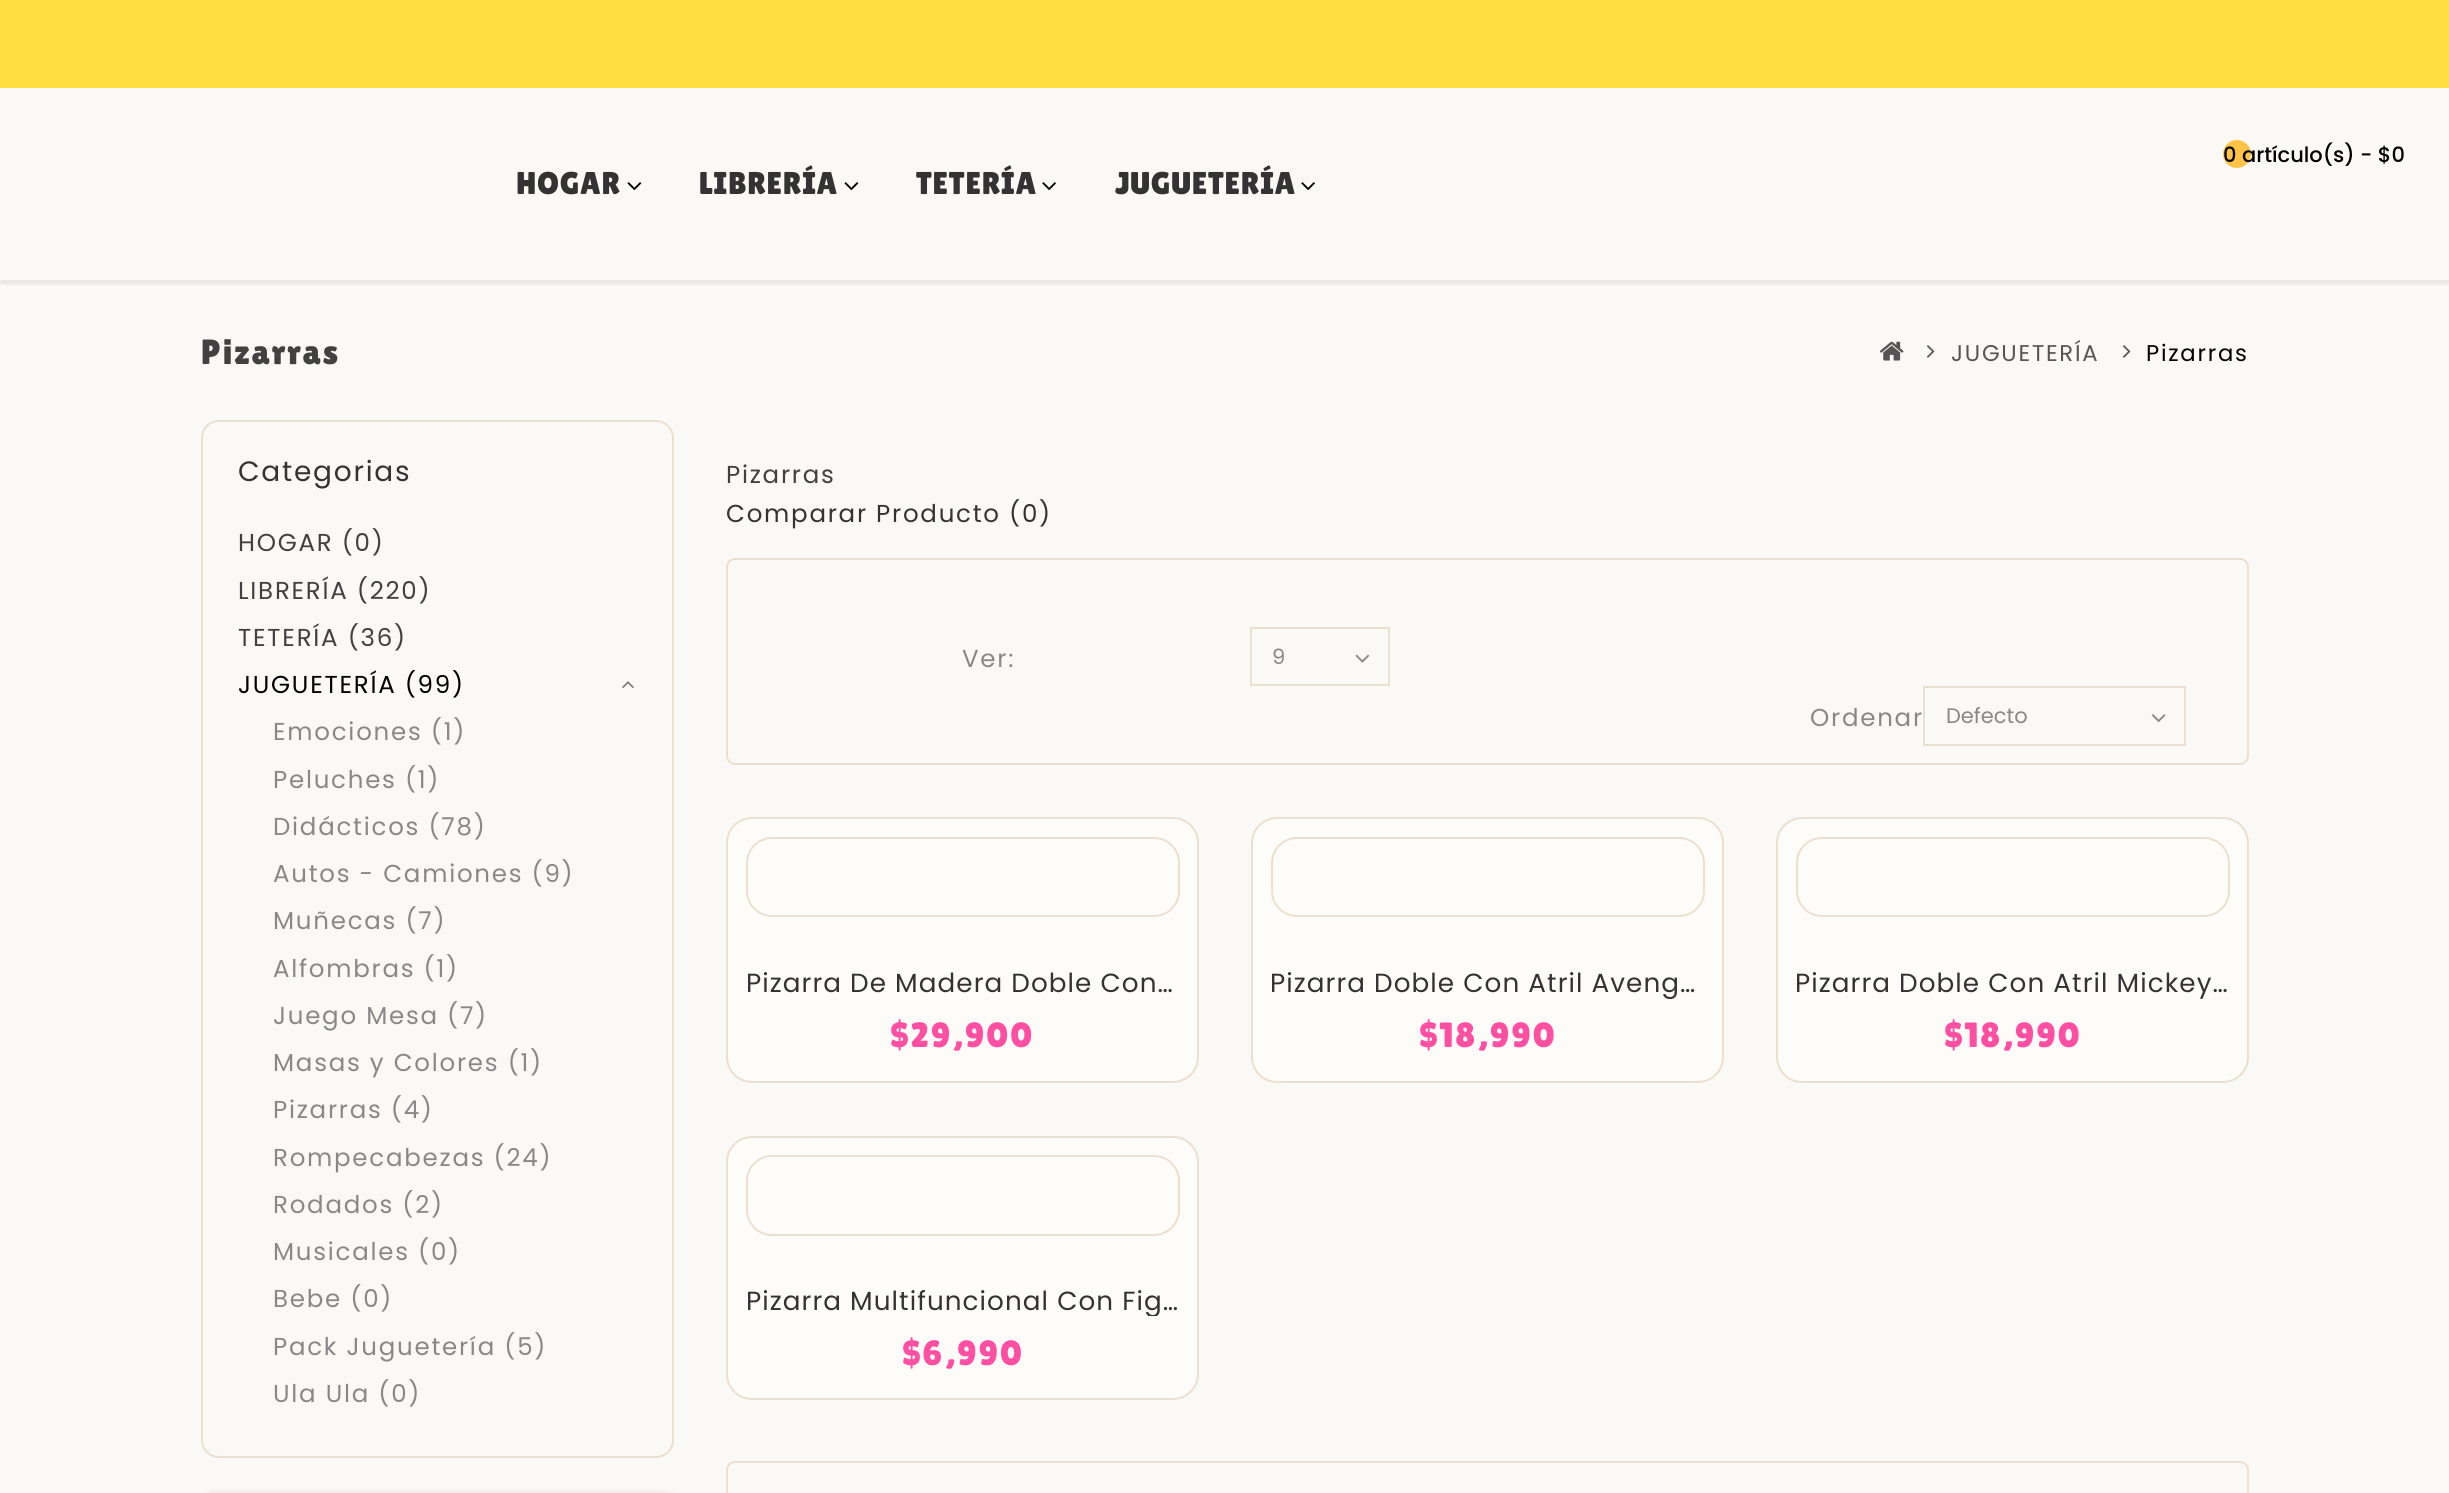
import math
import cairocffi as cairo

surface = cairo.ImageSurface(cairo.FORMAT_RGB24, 2449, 1493)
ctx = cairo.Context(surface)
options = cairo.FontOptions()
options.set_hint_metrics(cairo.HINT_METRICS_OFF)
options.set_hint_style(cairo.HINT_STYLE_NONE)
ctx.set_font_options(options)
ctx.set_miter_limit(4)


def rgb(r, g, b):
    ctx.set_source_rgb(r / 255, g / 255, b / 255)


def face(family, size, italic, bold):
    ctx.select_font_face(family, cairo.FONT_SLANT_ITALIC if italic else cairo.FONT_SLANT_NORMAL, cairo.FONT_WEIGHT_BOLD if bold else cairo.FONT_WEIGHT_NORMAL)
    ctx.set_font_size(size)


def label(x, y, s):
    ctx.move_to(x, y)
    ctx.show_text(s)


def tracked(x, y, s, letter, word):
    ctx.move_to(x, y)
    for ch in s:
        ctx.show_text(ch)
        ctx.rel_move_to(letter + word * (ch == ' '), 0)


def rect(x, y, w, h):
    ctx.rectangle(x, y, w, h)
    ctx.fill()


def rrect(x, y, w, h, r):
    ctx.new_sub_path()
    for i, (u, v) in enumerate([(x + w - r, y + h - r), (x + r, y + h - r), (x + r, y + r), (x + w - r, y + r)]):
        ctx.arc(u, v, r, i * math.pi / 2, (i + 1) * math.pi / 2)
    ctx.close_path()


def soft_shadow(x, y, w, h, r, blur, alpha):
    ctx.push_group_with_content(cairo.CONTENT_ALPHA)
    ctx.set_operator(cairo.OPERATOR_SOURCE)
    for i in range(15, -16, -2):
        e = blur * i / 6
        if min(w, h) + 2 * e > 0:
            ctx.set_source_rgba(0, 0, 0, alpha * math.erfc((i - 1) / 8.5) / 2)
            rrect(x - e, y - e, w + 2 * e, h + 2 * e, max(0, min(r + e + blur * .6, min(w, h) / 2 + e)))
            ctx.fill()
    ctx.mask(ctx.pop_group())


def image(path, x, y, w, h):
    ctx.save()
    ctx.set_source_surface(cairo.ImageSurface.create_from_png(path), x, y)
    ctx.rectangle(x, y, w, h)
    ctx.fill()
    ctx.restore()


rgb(251, 249, 245)
ctx.paint()
ctx.save()
ctx.rectangle(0, 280, 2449, 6)
ctx.clip()
rgb(50, 50, 50)
soft_shadow(0, 91, 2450, 193, 0, 2, 0.1)
ctx.restore()
rgb(255, 222, 63)
rect(0, 0, 2449, 88)
rgb(255, 196, 70)
ctx.arc(2237, 154, 14, 0, 2 * math.pi)
ctx.fill()
face('Poppins Medium', 21, 0, 0)
rgb(0, 0, 0)
label(2223, 162, '0 artículo(s) - $0')
face('Lilita One', 31.5, 0, 0)
rgb(51, 51, 51)
tracked(516, 194, 'HOGAR', 0.75, 0)
image('image0.png', 627, 182, 15, 9)
tracked(699, 194, 'LIBRERÍA', 0.75, 0)
image('image0.png', 844, 182, 15, 9)
tracked(916, 194, 'TETERÍA', 0.75, 0)
image('image1.png', 1042, 182, 14, 9)
tracked(1115, 194, 'JUGUETERÍA', 0.75, 0)
image('image1.png', 1301, 182, 14, 9)
face('Lilita One', 35, 0, 0)
rgb(65, 65, 65)
tracked(201, 364, 'Pizarras', 1.75, 0)
image('image2.png', 1879, 341, 25, 20)
image('image3.png', 1927, 345, 8, 13)
face('Poppins', 22.75, 0, 0)
rgb(85, 85, 85)
tracked(1951, 361, 'JUGUETERÍA', 1.75, 0)
image('image3.png', 2123, 345, 8, 13)
rgb(0, 0, 0)
tracked(2146, 361, 'Pizarras', 1.75, 0)
rrect(202, 421, 471, 1036, 17)
rgb(235, 224, 208)
ctx.stroke()
face('Poppins', 28, 0, 0)
rgb(51, 51, 51)
tracked(238, 481, 'Categorias', 1.75, 0)
face('Poppins', 24.5, 0, 0)
rgb(65, 65, 65)
tracked(238, 551, 'HOGAR (0)', 1.75, 0)
tracked(238, 599, 'LIBRERÍA (220)', 1.75, 0)
tracked(238, 646, 'TETERÍA (36)', 1.75, 0)
rgb(0, 0, 0)
tracked(238, 693, 'JUGUETERÍA (99)', 1.75, 0)
image('image4.png', 622, 681, 12, 7)
rgb(136, 136, 136)
tracked(273, 740, 'Emociones (1)', 1.75, 0)
tracked(273, 788, 'Peluches (1)', 1.75, 0)
tracked(273, 835, 'Didácticos (78)', 1.75, 0)
tracked(273, 882, 'Autos - Camiones (9)', 1.75, 0)
tracked(273, 929, 'Muñecas (7)', 1.75, 0)
tracked(273, 977, 'Alfombras (1)', 1.75, 0)
tracked(273, 1024, 'Juego Mesa (7)', 1.75, 0)
tracked(273, 1071, 'Masas y Colores (1)', 1.75, 0)
tracked(273, 1118, 'Pizarras (4)', 1.75, 0)
tracked(273, 1166, 'Rompecabezas (24)', 1.75, 0)
tracked(273, 1213, 'Rodados (2)', 1.75, 0)
tracked(273, 1260, 'Musicales (0)', 1.75, 0)
tracked(273, 1307, 'Bebe (0)', 1.75, 0)
tracked(273, 1355, 'Pack Juguetería (5)', 1.75, 0)
tracked(273, 1402, 'Ula Ula (0)', 1.75, 0)
rgb(0, 0, 0)
soft_shadow(201, 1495, 473, 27, 18, 3.5, 0.2)
rgb(65, 65, 65)
tracked(726, 483, 'Pizarras', 1.75, 0)
rgb(51, 51, 51)
tracked(726, 522, 'Comparar Producto (0)', 1.75, 0)
rrect(727, 559, 1521, 205, 8)
rgb(235, 224, 208)
ctx.stroke()
rgb(136, 136, 136)
tracked(962, 667, 'Ver:', 1.75, 0)
ctx.rectangle(1251, 628, 138, 57)
rgb(235, 224, 208)
ctx.stroke()
face('Poppins', 21, 0, 0)
rgb(136, 136, 136)
label(1272, 664, '9')
image('image5.png', 1355, 654, 15, 9)
face('Poppins', 24.5, 0, 0)
tracked(1810, 726, 'Ordenar', 1.75, 0)
ctx.rectangle(1924, 687, 261, 58)
rgb(235, 224, 208)
ctx.stroke()
face('Poppins', 21, 0, 0)
rgb(136, 136, 136)
label(1946, 723, 'Defecto')
image('image6.png', 2151, 714, 15, 9)
rgb(254, 252, 248)
rrect(727, 818, 471, 264, 25)
ctx.fill_preserve()
rgb(235, 224, 208)
ctx.stroke()
rrect(747, 838, 432, 78, 25)
ctx.stroke()
face('Poppins', 26.25, 0, 0)
rgb(51, 51, 51)
tracked(746, 992, 'Pizarra De Madera Doble Con…', 1.05, 0)
face('Lilita One', 35, 0, 0)
rgb(255, 79, 163)
tracked(890, 1047, '$29,900', 1.75, 0)
rgb(254, 252, 248)
rrect(1252, 818, 471, 264, 25)
ctx.fill_preserve()
rgb(235, 224, 208)
ctx.stroke()
rrect(1272, 838, 432, 78, 25)
ctx.stroke()
face('Poppins', 26.25, 0, 0)
rgb(51, 51, 51)
tracked(1270, 992, 'Pizarra Doble Con Atril Aveng…', 1.05, 0)
face('Lilita One', 35, 0, 0)
rgb(255, 79, 163)
tracked(1419, 1047, '$18,990', 1.75, 0)
rgb(254, 252, 248)
rrect(1777, 818, 471, 264, 25)
ctx.fill_preserve()
rgb(235, 224, 208)
ctx.stroke()
rrect(1797, 838, 432, 78, 25)
ctx.stroke()
face('Poppins', 26.25, 0, 0)
rgb(51, 51, 51)
tracked(1795, 992, 'Pizarra Doble Con Atril Mickey…', 1.05, 0)
face('Lilita One', 35, 0, 0)
rgb(255, 79, 163)
tracked(1944, 1047, '$18,990', 1.75, 0)
rgb(254, 252, 248)
rrect(727, 1137, 471, 262, 25)
ctx.fill_preserve()
rgb(235, 224, 208)
ctx.stroke()
rrect(747, 1156, 432, 79, 25)
ctx.stroke()
ctx.save()
ctx.rectangle(746, 1271, 434, 45)
ctx.clip()
face('Poppins', 26.25, 0, 0)
rgb(51, 51, 51)
tracked(746, 1310, 'Pizarra Multifuncional Con Fig…', 1.05, 0)
ctx.restore()
rgb(255, 79, 163)
tracked(902, 1365, '$6,990', 1.75, 0)
rrect(727, 1462, 1521, 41, 8)
rgb(235, 224, 208)
ctx.stroke()
surface.write_to_png('render.png')
